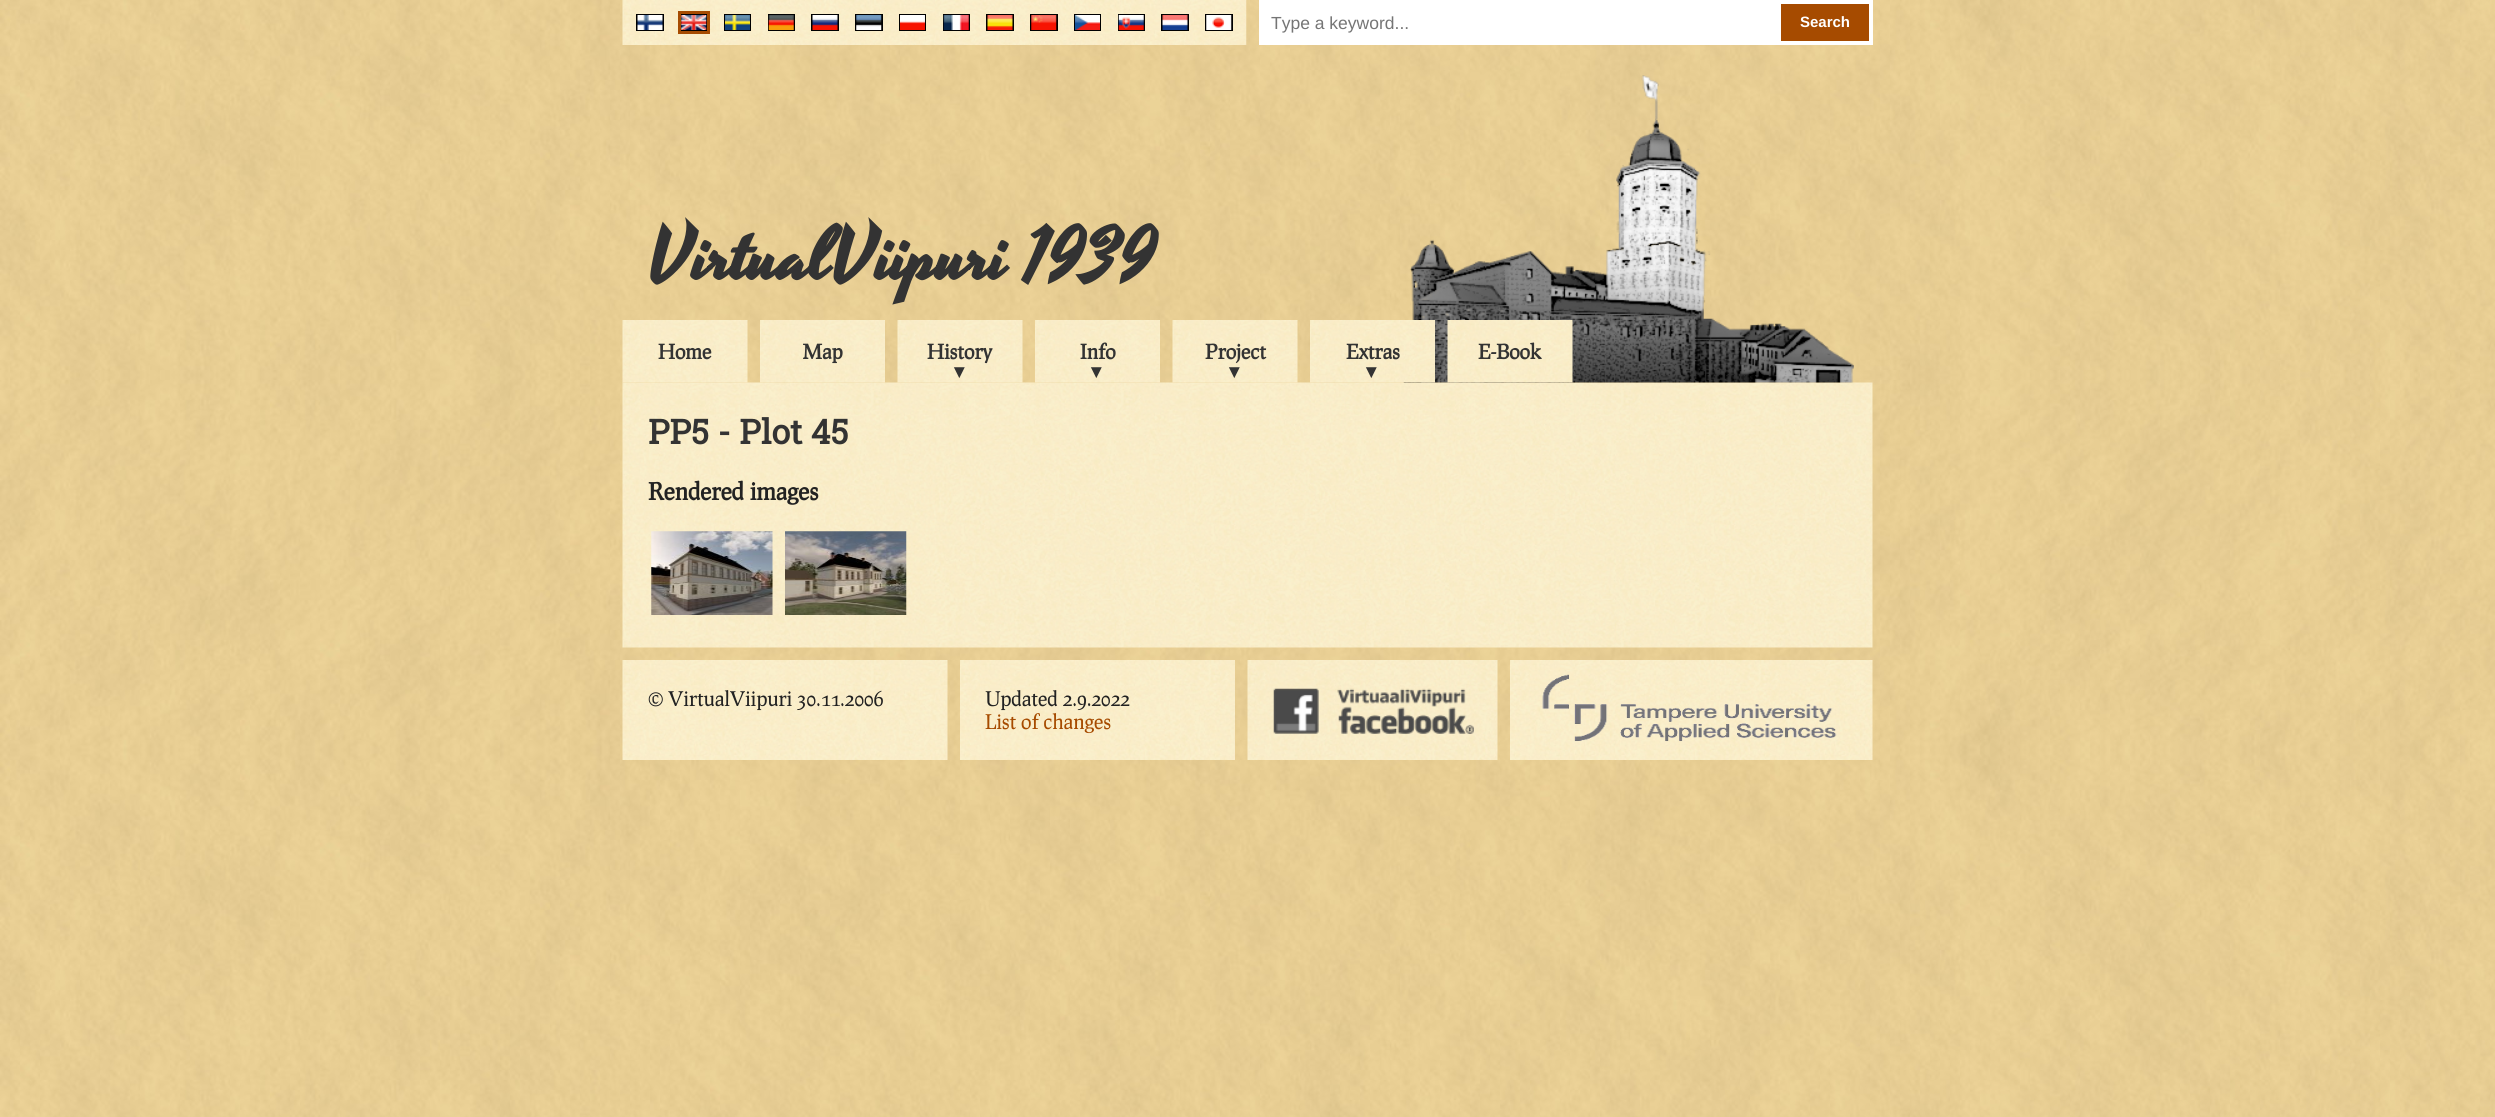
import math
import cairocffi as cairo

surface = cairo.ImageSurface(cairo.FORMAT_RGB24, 2495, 1117)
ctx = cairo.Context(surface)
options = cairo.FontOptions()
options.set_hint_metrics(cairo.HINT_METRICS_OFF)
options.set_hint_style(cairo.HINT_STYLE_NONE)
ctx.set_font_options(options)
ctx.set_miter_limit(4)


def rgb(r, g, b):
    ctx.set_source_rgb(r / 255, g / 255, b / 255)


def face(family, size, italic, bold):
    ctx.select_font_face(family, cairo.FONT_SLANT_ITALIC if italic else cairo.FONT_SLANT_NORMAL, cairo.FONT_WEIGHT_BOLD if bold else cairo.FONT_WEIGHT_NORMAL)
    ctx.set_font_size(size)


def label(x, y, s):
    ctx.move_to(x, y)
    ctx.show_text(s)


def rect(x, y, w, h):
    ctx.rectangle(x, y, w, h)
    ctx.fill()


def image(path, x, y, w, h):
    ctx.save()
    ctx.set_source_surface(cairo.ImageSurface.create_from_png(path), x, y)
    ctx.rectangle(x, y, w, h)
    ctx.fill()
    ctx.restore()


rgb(255, 255, 255)
ctx.paint()
image('image0.png', 0, 0, 2495, 1117)
image('image1.png', 622, 0, 625, 45)
rgb(0, 0, 0)
rect(636, 14, 28, 17)
image('image2.png', 637, 15, 26, 15)
ctx.rectangle(679.5, 12.5, 29, 20)
ctx.fill_preserve()
rgb(166, 75, 0)
ctx.set_line_width(3)
ctx.stroke()
image('image3.png', 681, 15, 26, 15)
rgb(0, 0, 0)
rect(724, 14, 27, 17)
image('image4.png', 725, 15, 25, 15)
rect(768, 14, 27, 17)
image('image5.png', 768, 15, 26, 15)
rect(811, 14, 28, 17)
image('image6.png', 812, 15, 26, 15)
rect(855, 14, 28, 17)
image('image7.png', 856, 15, 26, 15)
rect(899, 14, 27, 17)
image('image8.png', 900, 15, 25, 15)
rect(943, 14, 27, 17)
image('image9.png', 943, 15, 26, 15)
rect(986, 14, 28, 17)
image('image10.png', 987, 15, 26, 15)
rect(1030, 14, 28, 17)
image('image11.png', 1031, 15, 26, 15)
rect(1074, 14, 27, 17)
image('image12.png', 1075, 15, 25, 15)
rect(1118, 14, 27, 17)
image('image13.png', 1118, 15, 26, 15)
rect(1161, 14, 28, 17)
image('image14.png', 1162, 15, 26, 15)
rect(1205, 14, 28, 17)
image('image15.png', 1206, 15, 26, 15)
rgb(255, 255, 255)
rect(1259, 0, 614, 45)
face('Liberation Sans', 17.5, 0, 0)
rgb(117, 117, 117)
label(1271, 29, 'Type a keyword...')
rgb(166, 75, 0)
rect(1781, 4, 88, 37)
face('Liberation Sans', 15, 0, 1)
rgb(255, 255, 255)
label(1800, 27, 'Search')
image('image24.png', 622, 382, 1251, 266)
image('image16.png', 1403, 75, 451, 308)
face('Yesteryear', 75, 0, 1)
rgb(51, 51, 51)
label(648, 278, 'VirtualViipuri 1939')
image('image17.png', 622, 320, 126, 63)
face('Prociono', 20, 0, 1)
label(658, 359, 'Home')
image('image18.png', 760, 320, 125, 63)
label(803, 359, 'Map')
image('image19.png', 897, 320, 126, 63)
label(927, 359, 'History')
face('DejaVu Sans', 20, 0, 1)
label(954, 378, '▾')
image('image20.png', 1035, 320, 125, 63)
face('Prociono', 20, 0, 1)
label(1080, 359, 'Info')
face('DejaVu Sans', 20, 0, 1)
label(1091, 378, '▾')
image('image21.png', 1172, 320, 126, 63)
face('Prociono', 20, 0, 1)
label(1205, 359, 'Project')
face('DejaVu Sans', 20, 0, 1)
label(1229, 378, '▾')
image('image22.png', 1310, 320, 125, 63)
face('Prociono', 20, 0, 1)
label(1346, 359, 'Extras')
face('DejaVu Sans', 20, 0, 1)
label(1366, 378, '▾')
image('image23.png', 1447, 320, 126, 63)
face('Prociono', 20, 0, 1)
label(1478, 359, 'E-Book')
face('Roboto Slab', 34, 0, 1)
label(648, 444, 'PP5 - Plot 45')
face('Prociono', 23.5, 0, 1)
rgb(34, 34, 34)
label(648, 500, 'Rendered images')
image('image25.png', 651, 531, 122, 84)
image('image26.png', 785, 531, 122, 84)
image('image27.png', 622, 660, 326, 100)
face('Prociono', 20, 0, 0)
label(648, 706, '© VirtualViipuri 30.11.2006')
image('image28.png', 960, 660, 275, 100)
label(985, 706, 'Updated 2.9.2022')
rgb(166, 75, 0)
label(985, 729, 'List of changes')
image('image29.png', 1247, 660, 251, 100)
image('image30.png', 1273, 688, 201, 46)
image('image31.png', 1510, 660, 363, 100)
image('image32.png', 1542, 674, 295, 68)
surface.write_to_png('render.png')
